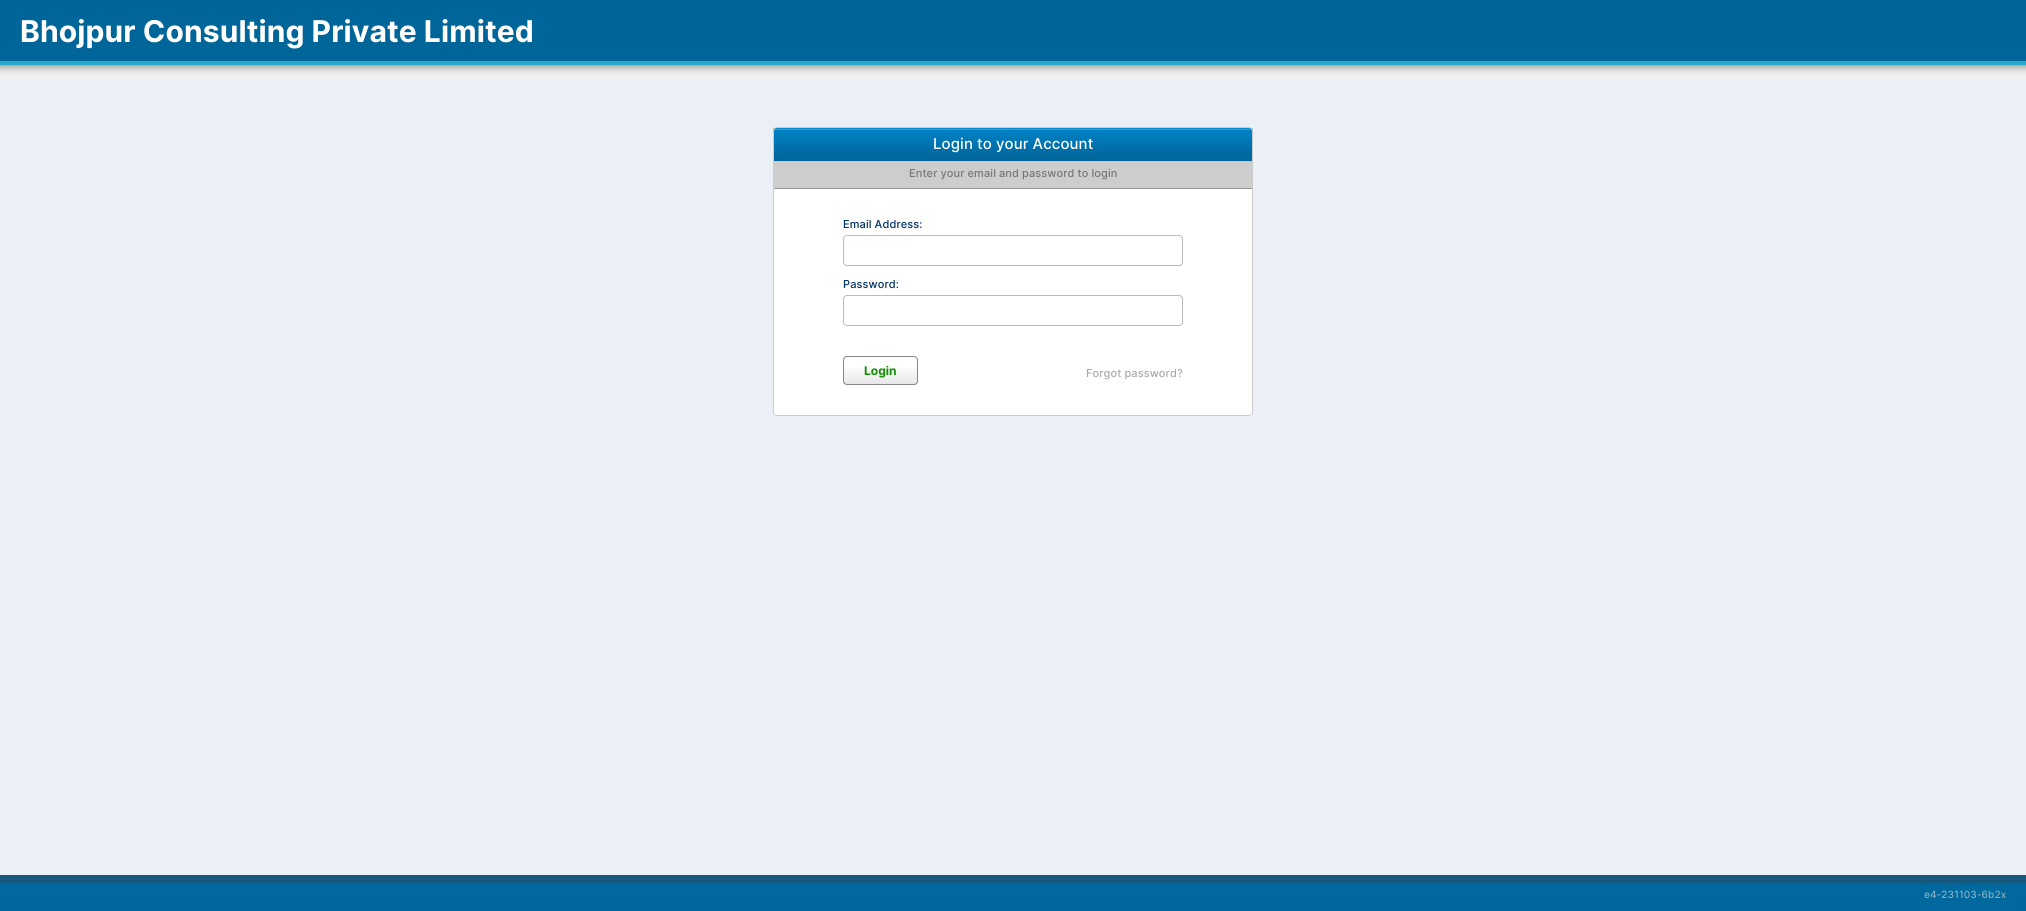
import math
import cairocffi as cairo

surface = cairo.ImageSurface(cairo.FORMAT_RGB24, 2026, 911)
ctx = cairo.Context(surface)
options = cairo.FontOptions()
options.set_hint_metrics(cairo.HINT_METRICS_OFF)
options.set_hint_style(cairo.HINT_STYLE_NONE)
ctx.set_font_options(options)
ctx.set_miter_limit(4)


def rgb(r, g, b):
    ctx.set_source_rgb(r / 255, g / 255, b / 255)


def face(family, size, italic, bold):
    ctx.select_font_face(family, cairo.FONT_SLANT_ITALIC if italic else cairo.FONT_SLANT_NORMAL, cairo.FONT_WEIGHT_BOLD if bold else cairo.FONT_WEIGHT_NORMAL)
    ctx.set_font_size(size)


def label(x, y, s):
    ctx.move_to(x, y)
    ctx.show_text(s)


def tracked(x, y, s, letter, word):
    ctx.move_to(x, y)
    for ch in s:
        ctx.show_text(ch)
        ctx.rel_move_to(letter + word * (ch == ' '), 0)


def rect(x, y, w, h):
    ctx.rectangle(x, y, w, h)
    ctx.fill()


def rrect(x, y, w, h, r):
    ctx.new_sub_path()
    for i, (u, v) in enumerate([(x + w - r, y + h - r), (x + r, y + h - r), (x + r, y + r), (x + w - r, y + r)]):
        ctx.arc(u, v, r, i * math.pi / 2, (i + 1) * math.pi / 2)
    ctx.close_path()


def image(path, x, y, w, h):
    ctx.save()
    ctx.set_source_surface(cairo.ImageSurface.create_from_png(path), x, y)
    ctx.rectangle(x, y, w, h)
    ctx.fill()
    ctx.restore()


rgb(234, 240, 245)
ctx.paint()
rgb(0, 102, 153)
rect(0, 0, 2026, 61)
rgb(37, 169, 201)
rect(0, 61, 2026, 4)
face('Inter', 30, 0, 1)
rgb(255, 255, 255)
tracked(20, 42, 'Bhojpur Consulting Private Limited', 0.1, 0)
image('image0.png', 0, 65, 2026, 12)
rrect(773, 127, 480, 289, 4)
ctx.fill()
image('image1.png', 773, 128, 480, 61)
rrect(773.5, 127.5, 479, 288, 3.5)
rgb(204, 204, 204)
ctx.set_line_width(1)
ctx.stroke()
face('Inter Medium', 15, 0, 0)
rgb(255, 255, 255)
tracked(933, 149, 'Login to your Account', 0.1, 0)
face('Inter Medium', 11, 0, 0)
rgb(119, 119, 119)
tracked(909, 177, 'Enter your email and password to login', 0.1, 0)
rgb(0, 51, 102)
tracked(843, 228, 'Email Address:', 0.1, 0)
rrect(843.5, 235.5, 339, 30, 3.5)
rgb(187, 187, 187)
ctx.stroke()
rgb(0, 51, 102)
tracked(843, 288, 'Password:', 0.1, 0)
rrect(843.5, 295.5, 339, 30, 3.5)
rgb(187, 187, 187)
ctx.stroke()
image('image2.png', 843, 368, 75, 17)
rrect(843.5, 356.5, 74, 28, 3.5)
rgb(136, 136, 136)
ctx.stroke()
face('Inter', 12, 0, 1)
rgb(17, 143, 2)
label(864, 375, 'Login')
face('Inter Medium', 11, 0, 0)
rgb(170, 170, 170)
tracked(1086, 377, 'Forgot password?', 0.1, 0)
rgb(0, 104, 156)
rect(0, 883, 2026, 28)
rgb(21, 89, 126)
rect(0, 875, 2026, 8)
face('Inter Medium', 10, 0, 0)
rgb(134, 176, 197)
tracked(1924, 898, 'e4-231103-6b2x', 0.1, 0)
surface.write_to_png('render.png')
